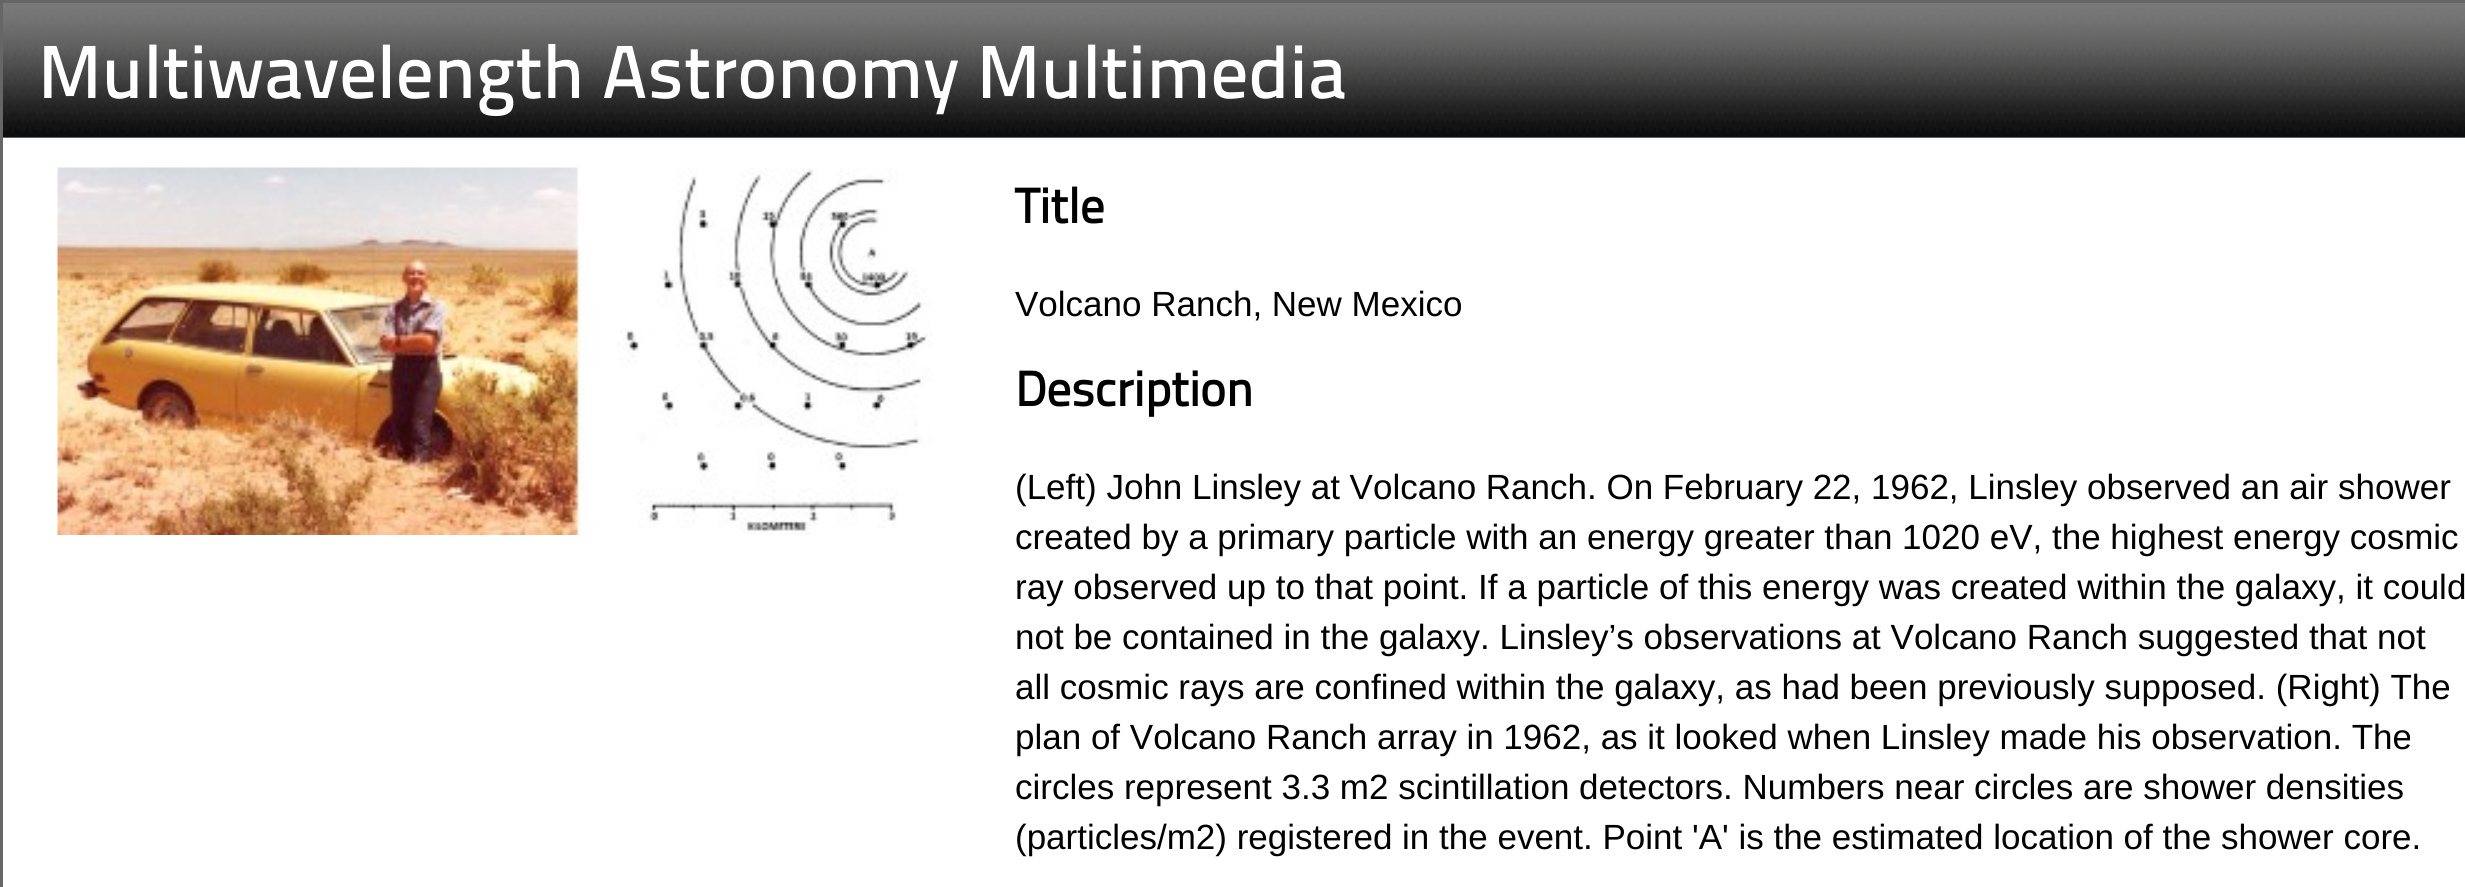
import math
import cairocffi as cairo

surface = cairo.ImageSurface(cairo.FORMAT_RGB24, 2465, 887)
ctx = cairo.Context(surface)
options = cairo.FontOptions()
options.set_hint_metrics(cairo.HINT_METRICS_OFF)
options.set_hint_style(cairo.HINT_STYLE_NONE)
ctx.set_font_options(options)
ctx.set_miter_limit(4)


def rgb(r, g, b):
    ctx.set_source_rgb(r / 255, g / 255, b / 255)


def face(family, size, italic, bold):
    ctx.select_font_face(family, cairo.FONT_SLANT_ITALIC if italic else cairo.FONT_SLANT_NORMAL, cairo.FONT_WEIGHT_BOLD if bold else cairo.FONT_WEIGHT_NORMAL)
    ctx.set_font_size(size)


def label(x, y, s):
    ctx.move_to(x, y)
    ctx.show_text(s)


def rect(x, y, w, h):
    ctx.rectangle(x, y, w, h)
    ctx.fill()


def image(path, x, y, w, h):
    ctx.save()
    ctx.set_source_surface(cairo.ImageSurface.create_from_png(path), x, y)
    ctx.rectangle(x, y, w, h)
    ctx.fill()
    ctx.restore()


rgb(177, 184, 198)
ctx.paint()
image('image0.png', 3, 3, 2462, 135)
rgb(102, 102, 102)
rect(0, 0, 2465, 3)
rect(0, 0, 3, 887)
face('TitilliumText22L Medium', 75, 0, 0)
rgb(255, 255, 255)
label(38, 98, 'Multiwavelength Astronomy Multimedia')
rect(3, 138, 2462, 749)
image('image1.png', 57, 167, 876, 368)
face('TitilliumText22L', 48.75, 0, 1)
rgb(0, 0, 0)
label(1015, 223, 'Title')
face('Liberation Sans', 35, 0, 0)
label(1015, 316, 'Volcano Ranch, New Mexico')
face('TitilliumText22L', 48.75, 0, 1)
label(1015, 406, 'Description')
face('Liberation Sans', 35, 0, 0)
label(1015, 499, '(Left) John Linsley at Volcano Ranch. On February 22, 1962, Linsley observed an air shower')
label(1015, 549, 'created by a primary particle with an energy greater than 1020 eV, the highest energy cosmic')
label(1015, 599, 'ray observed up to that point. If a particle of this energy was created within the galaxy, it could')
label(1015, 649, 'not be contained in the galaxy. Linsley’s observations at Volcano Ranch suggested that not')
label(1015, 699, 'all cosmic rays are confined within the galaxy, as had been previously supposed. (Right) The')
label(1015, 749, 'plan of Volcano Ranch array in 1962, as it looked when Linsley made his observation. The')
label(1015, 799, 'circles represent 3.3 m2 scintillation detectors. Numbers near circles are shower densities')
label(1015, 849, '(particles/m2) registered in the event. Point \'A\' is the estimated location of the shower core.')
surface.write_to_png('render.png')
